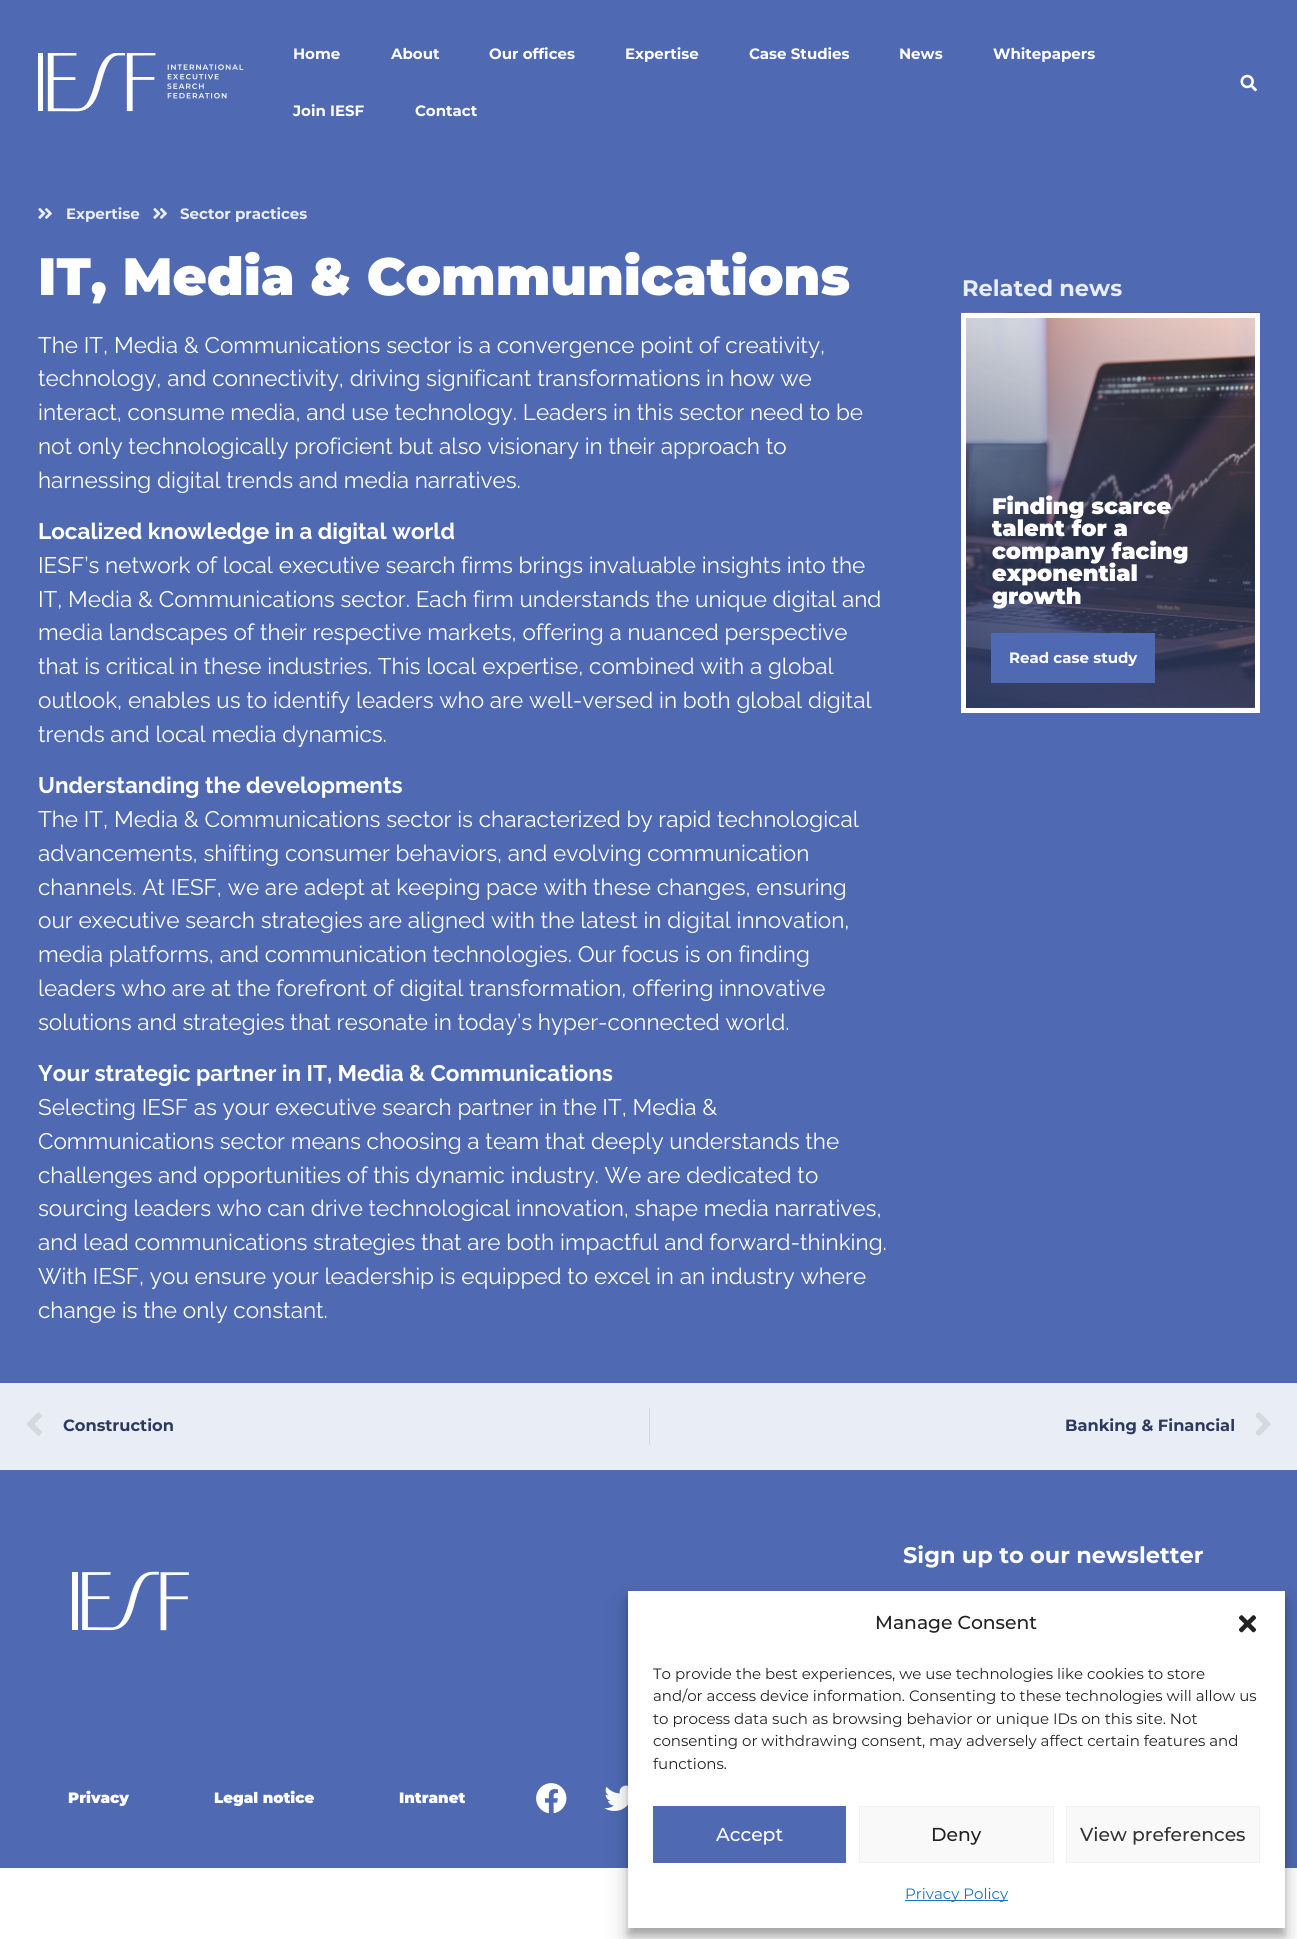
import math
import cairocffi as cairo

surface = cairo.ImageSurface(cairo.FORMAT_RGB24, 1297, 1939)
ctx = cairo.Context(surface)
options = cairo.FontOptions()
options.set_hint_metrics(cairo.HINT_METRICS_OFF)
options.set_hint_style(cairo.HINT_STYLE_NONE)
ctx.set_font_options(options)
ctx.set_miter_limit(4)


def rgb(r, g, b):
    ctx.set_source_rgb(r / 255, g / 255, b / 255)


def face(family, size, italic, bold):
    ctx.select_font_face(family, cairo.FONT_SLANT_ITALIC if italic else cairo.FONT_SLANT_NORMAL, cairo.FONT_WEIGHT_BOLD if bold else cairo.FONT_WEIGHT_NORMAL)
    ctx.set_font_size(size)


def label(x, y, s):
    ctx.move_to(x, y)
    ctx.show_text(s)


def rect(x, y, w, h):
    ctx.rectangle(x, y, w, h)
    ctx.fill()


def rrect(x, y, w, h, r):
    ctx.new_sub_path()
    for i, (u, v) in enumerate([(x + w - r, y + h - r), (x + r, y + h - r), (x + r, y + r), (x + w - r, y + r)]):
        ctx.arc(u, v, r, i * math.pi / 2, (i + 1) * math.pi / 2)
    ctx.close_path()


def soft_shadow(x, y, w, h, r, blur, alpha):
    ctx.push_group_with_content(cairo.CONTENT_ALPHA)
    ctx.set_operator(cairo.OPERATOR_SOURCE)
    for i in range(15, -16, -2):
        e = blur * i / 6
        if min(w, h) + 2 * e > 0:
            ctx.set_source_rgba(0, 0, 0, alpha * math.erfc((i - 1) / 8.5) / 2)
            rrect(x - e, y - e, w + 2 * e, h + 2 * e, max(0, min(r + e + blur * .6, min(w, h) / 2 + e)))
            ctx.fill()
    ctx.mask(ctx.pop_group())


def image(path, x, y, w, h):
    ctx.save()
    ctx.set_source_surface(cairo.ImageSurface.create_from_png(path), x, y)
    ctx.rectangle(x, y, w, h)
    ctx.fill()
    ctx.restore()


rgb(255, 255, 255)
ctx.paint()
rgb(79, 106, 179)
rect(0, 0, 1297, 1383)
image('image0.png', 38, 53, 206, 59)
face('Montserrat', 15, 0, 1)
rgb(255, 255, 255)
label(293, 59, 'Home')
label(391, 59, 'About')
label(489, 59, 'Our offices')
label(625, 59, 'Expertise')
label(749, 59, 'Case Studies')
label(899, 59, 'News')
label(993, 59, 'Whitepapers')
label(293, 116, 'Join IESF')
label(415, 116, 'Contact')
image('image1.png', 1240, 74, 17, 18)
image('image2.png', 38, 208, 14, 11)
rgb(233, 237, 246)
label(66, 219, 'Expertise')
image('image2.png', 153, 208, 14, 11)
label(180, 219, 'Sector practices')
face('Montserrat Black', 52.5, 0, 0)
rgb(255, 255, 255)
label(38, 295, 'IT, Media & Communications')
face('Raleway', 22.5, 0, 0)
label(38, 353, 'The IT, Media & Communications sector is a convergence point of creativity,')
label(38, 386, 'technology, and connectivity, driving significant transformations in how we')
label(38, 420, 'interact, consume media, and use technology. Leaders in this sector need to be')
label(38, 454, 'not only technologically proficient but also visionary in their approach to')
label(38, 488, 'harnessing digital trends and media narratives.')
face('Raleway', 22.5, 0, 1)
label(38, 539, 'Localized knowledge in a digital world')
face('Raleway', 22.5, 0, 0)
label(38, 573, 'IESF’s network of local executive search firms brings invaluable insights into the')
label(38, 607, 'IT, Media & Communications sector. Each firm understands the unique digital and')
label(38, 640, 'media landscapes of their respective markets, offering a nuanced perspective')
label(38, 674, 'that is critical in these industries. This local expertise, combined with a global')
label(38, 708, 'outlook, enables us to identify leaders who are well-versed in both global digital')
label(38, 742, 'trends and local media dynamics.')
face('Raleway', 22.5, 0, 1)
label(38, 793, 'Understanding the developments')
face('Raleway', 22.5, 0, 0)
label(38, 827, 'The IT, Media & Communications sector is characterized by rapid technological')
label(38, 861, 'advancements, shifting consumer behaviors, and evolving communication')
label(38, 895, 'channels. At IESF, we are adept at keeping pace with these changes, ensuring')
label(38, 928, 'our executive search strategies are aligned with the latest in digital innovation,')
label(38, 962, 'media platforms, and communication technologies. Our focus is on finding')
label(38, 996, 'leaders who are at the forefront of digital transformation, offering innovative')
label(38, 1030, 'solutions and strategies that resonate in today’s hyper-connected world.')
face('Raleway', 22.5, 0, 1)
label(38, 1081, 'Your strategic partner in IT, Media & Communications')
face('Raleway', 22.5, 0, 0)
label(38, 1115, 'Selecting IESF as your executive search partner in the IT, Media &')
label(38, 1149, 'Communications sector means choosing a team that deeply understands the')
label(38, 1183, 'challenges and opportunities of this dynamic industry. We are dedicated to')
label(38, 1216, 'sourcing leaders who can drive technological innovation, shape media narratives,')
label(38, 1250, 'and lead communications strategies that are both impactful and forward-thinking.')
label(38, 1284, 'With IESF, you ensure your leadership is equipped to excel in an industry where')
label(38, 1318, 'change is the only constant.')
face('Montserrat', 22.5, 0, 1)
rgb(233, 237, 246)
label(962, 296, 'Related news')
image('image3.png', 961, 312, 299, 396)
ctx.rectangle(963.5, 315.5, 294, 395)
rgb(255, 255, 255)
ctx.set_line_width(5)
ctx.stroke()
face('Montserrat Black', 22.5, 0, 0)
label(992, 514, 'Finding scarce')
label(992, 536, 'talent for a')
label(992, 559, 'company facing')
label(992, 581, 'exponential')
label(992, 604, 'growth')
rgb(79, 106, 179)
rect(991, 633, 164, 50)
face('Montserrat', 15, 0, 1)
rgb(255, 255, 255)
label(1009, 663, 'Read case study')
rgb(233, 237, 246)
rect(0, 1383, 1297, 87)
image('image4.png', 27, 1412, 15, 24)
face('Montserrat', 16.25, 0, 1)
rgb(45, 58, 95)
label(63, 1431, 'Construction')
rgb(213, 216, 220)
rect(649, 1408, 1, 37)
rgb(45, 58, 95)
label(1065, 1431, 'Banking & Financial')
image('image5.png', 1255, 1412, 16, 24)
rgb(79, 106, 179)
rect(0, 1470, 1297, 398)
face('Montserrat', 22.5, 0, 1)
rgb(255, 255, 255)
label(903, 1563, 'Sign up to our newsletter')
image('image6.png', 72, 1571, 117, 60)
face('Montserrat Black', 15, 0, 0)
label(68, 1803, 'Privacy')
label(214, 1803, 'Legal notice')
label(399, 1803, 'Intranet')
image('image7.png', 536, 1783, 31, 31)
image('image8.png', 604, 1785, 24, 26)
rgb(0, 0, 0)
soft_shadow(628, 1599, 657, 336, 0, 4, 0.23)
soft_shadow(628, 1604, 657, 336, 0, 12.5, 0.19)
rgb(255, 255, 255)
rect(628, 1591, 657, 337)
face('Montserrat Medium', 18.75, 0, 0)
rgb(34, 34, 34)
label(875, 1629, 'Manage Consent')
image('image9.png', 1238, 1615, 19, 18)
face('Montserrat', 15, 0, 0)
label(653, 1679, 'To provide the best experiences, we use technologies like cookies to store')
label(653, 1701, 'and/or access device information. Consenting to these technologies will allow us')
label(653, 1724, 'to process data such as browsing behavior or unique IDs on this site. Not')
label(653, 1746, 'consenting or withdrawing consent, may adversely affect certain features and')
label(653, 1769, 'functions.')
rgb(79, 106, 179)
rect(653, 1806, 193, 57)
face('Montserrat Medium', 18.75, 0, 0)
rgb(255, 255, 255)
label(716, 1841, 'Accept')
rgb(249, 249, 249)
ctx.rectangle(859.5, 1806.5, 194, 56)
ctx.fill_preserve()
rgb(242, 242, 242)
ctx.set_line_width(1)
ctx.stroke()
rgb(34, 34, 34)
label(931, 1841, 'Deny')
rgb(249, 249, 249)
ctx.rectangle(1066.5, 1806.5, 193, 56)
ctx.fill_preserve()
rgb(242, 242, 242)
ctx.stroke()
rgb(51, 51, 51)
label(1080, 1841, 'View preferences')
rgb(30, 115, 190)
rect(905, 1900, 103, 1)
face('Montserrat', 15, 0, 0)
label(905, 1899, 'Privacy Policy')
surface.write_to_png('render.png')
